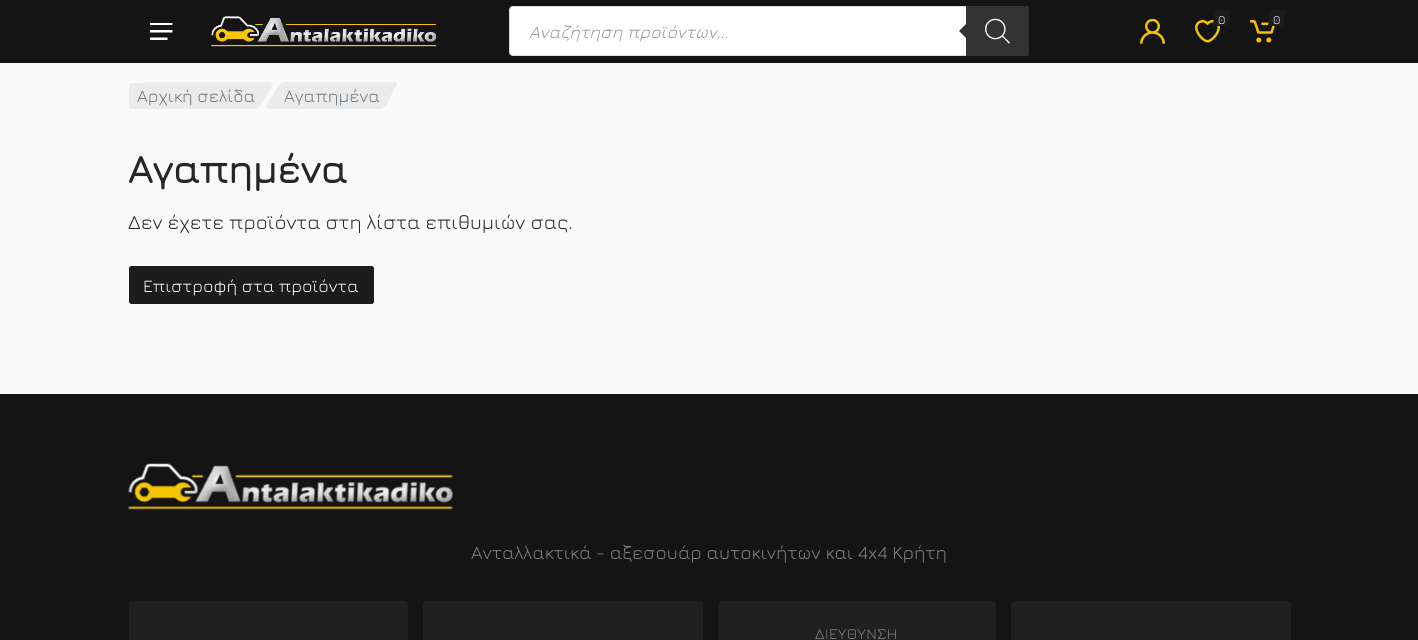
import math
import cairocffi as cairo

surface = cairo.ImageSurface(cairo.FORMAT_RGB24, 1418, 640)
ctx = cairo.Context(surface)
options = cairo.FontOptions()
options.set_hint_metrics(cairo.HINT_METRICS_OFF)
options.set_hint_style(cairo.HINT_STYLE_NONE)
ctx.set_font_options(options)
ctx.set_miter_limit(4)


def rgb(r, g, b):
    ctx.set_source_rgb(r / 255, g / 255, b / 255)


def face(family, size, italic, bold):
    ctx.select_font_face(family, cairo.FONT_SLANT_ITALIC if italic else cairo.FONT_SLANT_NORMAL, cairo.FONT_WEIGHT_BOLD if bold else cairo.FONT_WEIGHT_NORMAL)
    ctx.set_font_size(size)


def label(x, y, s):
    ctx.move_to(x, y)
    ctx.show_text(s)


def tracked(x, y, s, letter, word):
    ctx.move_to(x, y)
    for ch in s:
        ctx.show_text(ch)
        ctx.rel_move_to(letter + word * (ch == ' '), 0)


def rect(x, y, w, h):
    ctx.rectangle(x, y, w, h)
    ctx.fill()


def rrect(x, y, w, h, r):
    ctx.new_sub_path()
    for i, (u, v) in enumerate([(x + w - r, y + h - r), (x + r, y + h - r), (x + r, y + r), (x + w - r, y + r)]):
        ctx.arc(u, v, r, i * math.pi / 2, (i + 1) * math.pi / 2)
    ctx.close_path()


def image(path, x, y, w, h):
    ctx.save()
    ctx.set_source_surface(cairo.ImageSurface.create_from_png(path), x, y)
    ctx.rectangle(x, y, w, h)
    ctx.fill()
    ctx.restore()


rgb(250, 250, 250)
ctx.paint()
rgb(20, 20, 20)
rect(0, 0, 1418, 63)
image('image0.png', 211, 16, 225, 31)
image('image1.png', 1140, 19, 25, 25)
image('image2.png', 1195, 20, 25, 23)
rgb(28, 28, 28)
ctx.new_path()
ctx.move_to(1219, 10)
ctx.line_to(1225, 10)
ctx.curve_to(1227, 10, 1230.5, 9.5, 1230.5, 12.5)
ctx.line_to(1229.5, 18)
ctx.curve_to(1228.5, 23, 1229, 26, 1223, 26)
ctx.line_to(1215.5, 26)
ctx.curve_to(1211.5, 26, 1214, 20.5, 1214, 18)
ctx.curve_to(1214.5, 15.5, 1215, 10, 1219, 10)
ctx.close_path()
ctx.fill()
face('Jura Light', 12, 0, 0)
rgb(255, 255, 255)
label(1218, 24, '0')
image('image3.png', 1250, 20, 25, 23)
rgb(28, 28, 28)
ctx.new_path()
ctx.move_to(1274, 10)
ctx.line_to(1280, 10)
ctx.curve_to(1282, 10, 1285.5, 9.5, 1285.5, 12.5)
ctx.line_to(1284.5, 18)
ctx.curve_to(1283.5, 23, 1284, 26, 1278, 26)
ctx.line_to(1270.5, 26)
ctx.curve_to(1266.5, 26, 1269, 20.5, 1269, 18)
ctx.curve_to(1269.5, 15.5, 1270, 10, 1274, 10)
ctx.close_path()
ctx.fill()
rgb(255, 255, 255)
label(1273, 24, '0')
image('image4.png', 150, 23, 23, 17)
rrect(509.5, 6.5, 519, 49, 3.5)
ctx.fill_preserve()
rgb(221, 221, 221)
ctx.set_line_width(1)
ctx.stroke()
face('Jura Light', 17.5, 1, 0)
rgb(153, 153, 153)
label(529, 38, 'Αναζήτηση προϊόντων...')
rgb(51, 51, 51)
ctx.new_path()
ctx.move_to(966, 6)
ctx.line_to(1026.5, 6)
ctx.curve_to(1028, 6, 1029, 7, 1029, 8.5)
ctx.line_to(1029, 53.5)
ctx.curve_to(1029, 55, 1028, 56, 1026.5, 56)
ctx.line_to(966, 56)
ctx.close_path()
ctx.fill()
ctx.new_path()
ctx.move_to(969, 21)
ctx.line_to(969, 41)
ctx.line_to(959, 31)
ctx.close_path()
ctx.fill()
image('image5.png', 985, 18, 25, 26)
rgb(235, 235, 235)
ctx.new_path()
ctx.move_to(147, 82)
ctx.line_to(270, 82)
ctx.curve_to(272, 82, 273, 84, 272, 86)
ctx.line_to(261, 105)
ctx.curve_to(260, 107, 257, 109, 255, 109)
ctx.line_to(132, 109)
ctx.curve_to(130, 109, 129, 107, 130, 105)
ctx.line_to(141, 86)
ctx.curve_to(142, 84, 145, 82, 147, 82)
ctx.close_path()
ctx.fill()
rrect(129, 83, 120, 26, 4)
ctx.fill()
face('Jura Light', 17.5, 0, 0)
rgb(108, 117, 125)
label(137, 102, 'Αρχική σελίδα')
rgb(235, 235, 235)
ctx.new_path()
ctx.move_to(284, 82)
ctx.line_to(395, 82)
ctx.curve_to(397, 82, 398, 84, 396, 86)
ctx.line_to(386, 105)
ctx.curve_to(384, 107, 382, 109, 380, 109)
ctx.line_to(269, 109)
ctx.curve_to(267, 109, 266, 107, 267, 105)
ctx.line_to(278, 86)
ctx.curve_to(279, 84, 282, 82, 284, 82)
ctx.close_path()
ctx.fill()
rgb(108, 117, 125)
label(284, 102, 'Αγαπημένα')
face('Jura', 40, 0, 1)
rgb(38, 38, 38)
label(128, 183, 'Αγαπημένα')
face('Jura Light', 20, 0, 0)
label(128, 229, 'Δεν έχετε προϊόντα στη λίστα επιθυμιών σας.')
rgb(28, 28, 28)
rrect(129, 266, 245, 38, 2.5)
ctx.fill()
face('Jura Light', 17.5, 0, 0)
rgb(255, 255, 255)
label(143, 292, 'Επιστροφή στα προϊόντα')
rgb(20, 20, 20)
rect(0, 394, 1418, 246)
image('image6.png', 128, 463, 325, 47)
face('Jura Light', 18.75, 0, 0)
rgb(129, 129, 129)
label(471, 559, 'Ανταλλακτικά - αξεσουάρ αυτοκινήτων και 4x4 Κρήτη')
rgb(32, 32, 32)
rrect(129, 601, 279, 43, 4)
ctx.fill()
rrect(423, 601, 280, 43, 4)
ctx.fill()
rrect(718, 601, 278, 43, 4)
ctx.fill()
face('Jura Light', 15, 0, 0)
rgb(129, 129, 129)
tracked(815, 639, 'ΔΙΕΥΘΥΝΣΗ', 0.5, 0)
rgb(32, 32, 32)
rrect(1011, 601, 280, 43, 4)
ctx.fill()
surface.write_to_png('render.png')
